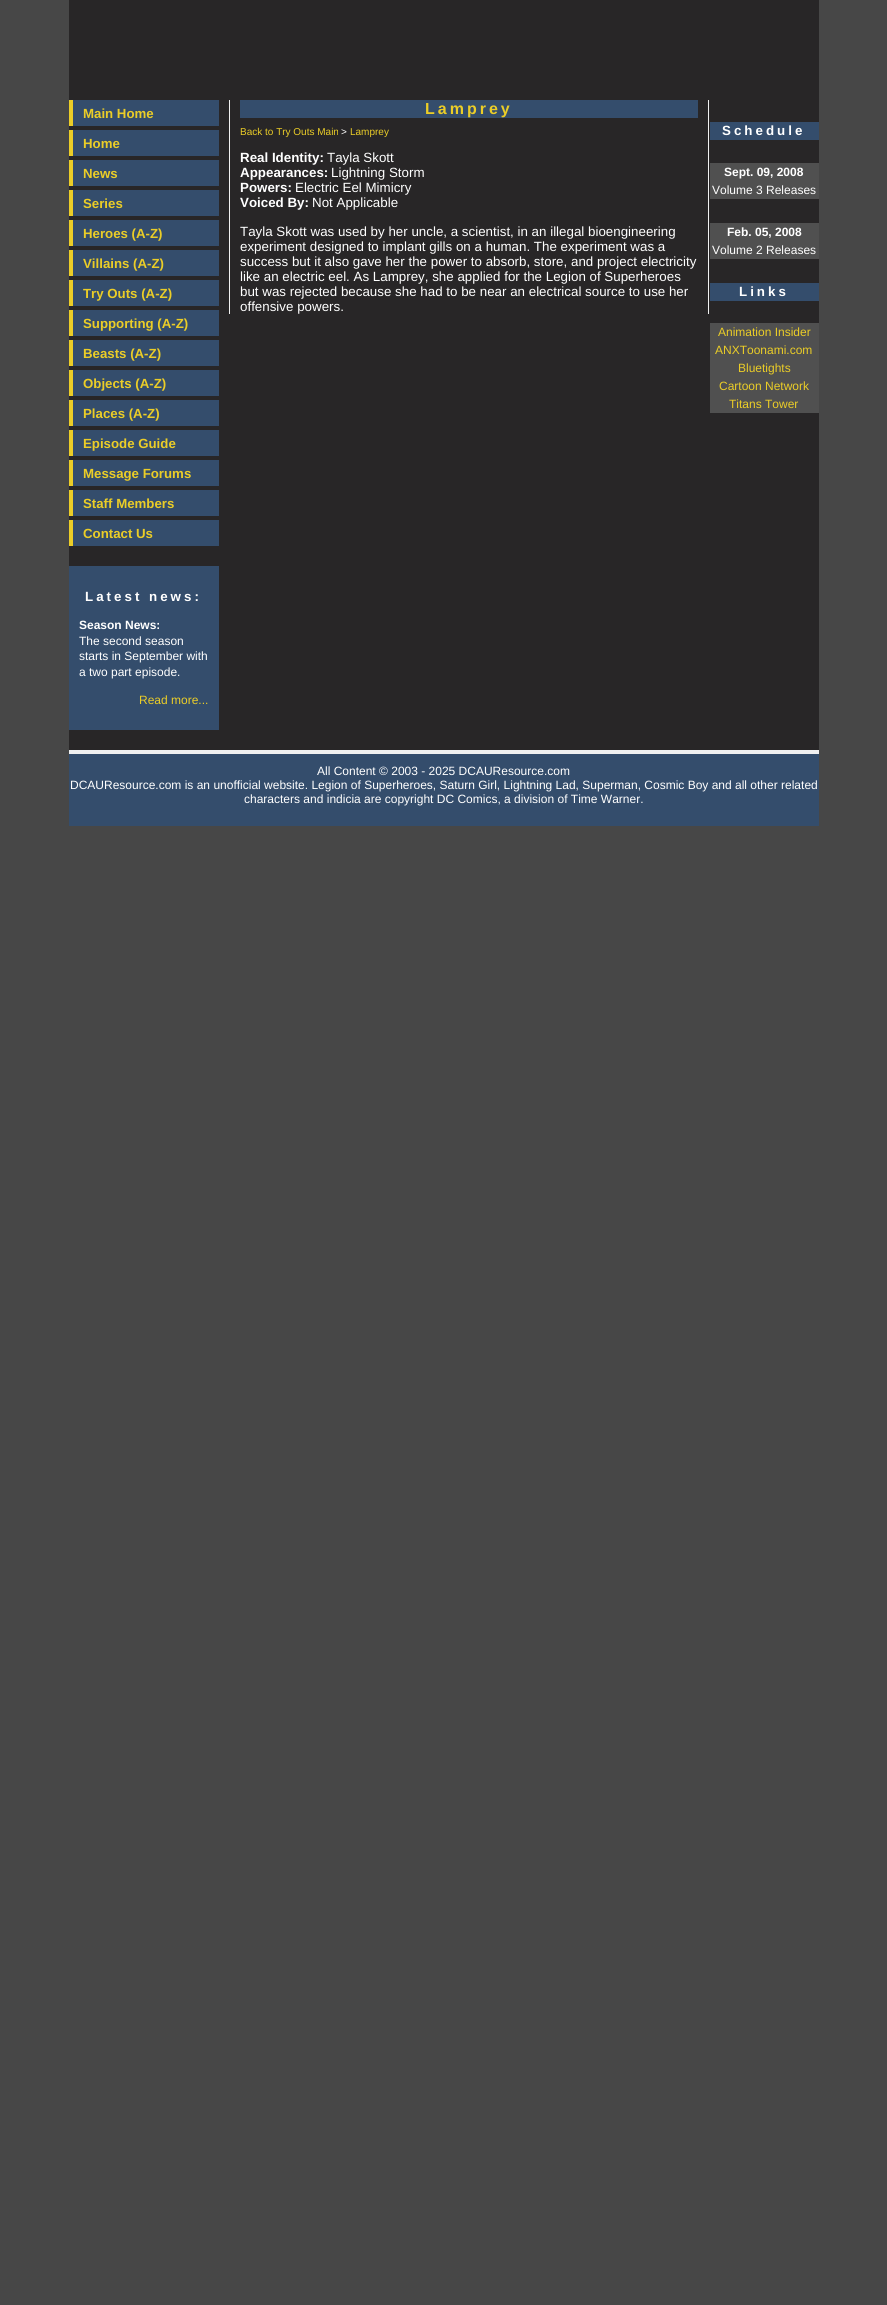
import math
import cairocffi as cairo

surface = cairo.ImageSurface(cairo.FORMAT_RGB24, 887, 2305)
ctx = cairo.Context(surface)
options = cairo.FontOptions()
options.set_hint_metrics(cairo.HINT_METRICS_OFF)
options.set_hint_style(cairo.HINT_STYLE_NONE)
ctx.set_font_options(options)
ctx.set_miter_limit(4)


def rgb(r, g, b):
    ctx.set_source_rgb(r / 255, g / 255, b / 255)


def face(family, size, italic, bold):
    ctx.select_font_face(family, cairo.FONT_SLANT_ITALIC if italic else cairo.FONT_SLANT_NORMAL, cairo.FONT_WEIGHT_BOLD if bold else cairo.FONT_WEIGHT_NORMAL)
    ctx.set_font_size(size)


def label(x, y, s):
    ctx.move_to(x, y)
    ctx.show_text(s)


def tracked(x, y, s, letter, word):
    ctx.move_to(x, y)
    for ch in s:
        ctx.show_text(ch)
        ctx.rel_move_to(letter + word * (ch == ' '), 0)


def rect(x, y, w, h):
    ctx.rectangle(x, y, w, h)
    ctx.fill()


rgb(71, 71, 71)
ctx.paint()
rgb(40, 38, 39)
rect(69, 0, 750, 750)
rgb(52, 77, 108)
rect(73, 100, 146, 26)
rgb(235, 205, 39)
rect(69, 100, 4, 26)
face('Liberation Sans', 13.25, 0, 1)
label(83, 118, 'Main Home')
rgb(52, 77, 108)
rect(73, 130, 146, 26)
rgb(235, 205, 39)
rect(69, 130, 4, 26)
label(83, 148, 'Home')
rgb(52, 77, 108)
rect(73, 160, 146, 26)
rgb(235, 205, 39)
rect(69, 160, 4, 26)
label(83, 178, 'News')
rgb(52, 77, 108)
rect(73, 190, 146, 26)
rgb(235, 205, 39)
rect(69, 190, 4, 26)
label(83, 208, 'Series')
rgb(52, 77, 108)
rect(73, 220, 146, 26)
rgb(235, 205, 39)
rect(69, 220, 4, 26)
label(83, 238, 'Heroes (A-Z)')
rgb(52, 77, 108)
rect(73, 250, 146, 26)
rgb(235, 205, 39)
rect(69, 250, 4, 26)
label(83, 268, 'Villains (A-Z)')
rgb(52, 77, 108)
rect(73, 280, 146, 26)
rgb(235, 205, 39)
rect(69, 280, 4, 26)
label(83, 298, 'Try Outs (A-Z)')
rgb(52, 77, 108)
rect(73, 310, 146, 26)
rgb(235, 205, 39)
rect(69, 310, 4, 26)
label(83, 328, 'Supporting (A-Z)')
rgb(52, 77, 108)
rect(73, 340, 146, 26)
rgb(235, 205, 39)
rect(69, 340, 4, 26)
label(83, 358, 'Beasts (A-Z)')
rgb(52, 77, 108)
rect(73, 370, 146, 26)
rgb(235, 205, 39)
rect(69, 370, 4, 26)
label(83, 388, 'Objects (A-Z)')
rgb(52, 77, 108)
rect(73, 400, 146, 26)
rgb(235, 205, 39)
rect(69, 400, 4, 26)
label(83, 418, 'Places (A-Z)')
rgb(52, 77, 108)
rect(73, 430, 146, 26)
rgb(235, 205, 39)
rect(69, 430, 4, 26)
label(83, 448, 'Episode Guide')
rgb(52, 77, 108)
rect(73, 460, 146, 26)
rgb(235, 205, 39)
rect(69, 460, 4, 26)
label(83, 478, 'Message Forums')
rgb(52, 77, 108)
rect(73, 490, 146, 26)
rgb(235, 205, 39)
rect(69, 490, 4, 26)
label(83, 508, 'Staff Members')
rgb(52, 77, 108)
rect(73, 520, 146, 26)
rgb(235, 205, 39)
rect(69, 520, 4, 26)
label(83, 538, 'Contact Us')
rgb(52, 77, 108)
rect(69, 566, 150, 164)
face('Liberation Sans', 13.35, 0, 1)
rgb(255, 255, 255)
tracked(85, 601, 'Latest news:', 3, 0)
face('Liberation Sans', 12, 0, 1)
label(79, 629, 'Season News:')
face('Liberation Sans', 12, 0, 0)
label(79, 645, 'The second season')
label(79, 660, 'starts in September with')
label(79, 676, 'a two part episode.')
rgb(235, 205, 39)
label(139, 704, 'Read more...')
rgb(240, 240, 240)
rect(708, 100, 1, 214)
rect(229, 100, 1, 214)
rgb(52, 77, 108)
rect(240, 100, 458, 18)
face('Liberation Sans', 16, 0, 1)
rgb(235, 205, 39)
tracked(425, 114, 'Lamprey', 3, 0)
face('Liberation Sans', 10, 0, 0)
label(240, 135, 'Back to Try Outs Main')
rgb(255, 255, 255)
label(341, 135, '>')
rgb(235, 205, 39)
label(350, 135, 'Lamprey')
face('Liberation Sans', 13.35, 0, 1)
rgb(255, 255, 255)
label(240, 162, 'Real Identity:')
face('Liberation Sans', 13.35, 0, 0)
label(327, 162, 'Tayla Skott')
face('Liberation Sans', 13.35, 0, 1)
label(240, 177, 'Appearances:')
face('Liberation Sans', 13.35, 0, 0)
label(331, 177, 'Lightning Storm')
face('Liberation Sans', 13.35, 0, 1)
label(240, 192, 'Powers:')
face('Liberation Sans', 13.35, 0, 0)
label(295, 192, 'Electric Eel Mimicry')
face('Liberation Sans', 13.35, 0, 1)
label(240, 207, 'Voiced By:')
face('Liberation Sans', 13.35, 0, 0)
label(312, 207, 'Not Applicable')
label(240, 236, 'Tayla Skott was used by her uncle, a scientist, in an illegal bioengineering')
label(240, 251, 'experiment designed to implant gills on a human. The experiment was a')
label(240, 266, 'success but it also gave her the power to absorb, store, and project electricity')
label(240, 281, 'like an electric eel. As Lamprey, she applied for the Legion of Superheroes')
label(240, 296, 'but was rejected because she had to be near an electrical source to use her')
label(240, 311, 'offensive powers.')
rgb(52, 77, 108)
rect(710, 122, 109, 18)
face('Liberation Sans', 13.35, 0, 1)
rgb(255, 255, 255)
tracked(722, 135, 'Schedule', 3, 0)
rgb(80, 80, 80)
rect(710, 163, 109, 36)
face('Liberation Sans', 12, 0, 1)
rgb(255, 255, 255)
label(724, 176, 'Sept. 09, 2008')
face('Liberation Sans', 12, 0, 0)
label(712, 194, 'Volume 3 Releases')
rgb(80, 80, 80)
rect(710, 223, 109, 36)
face('Liberation Sans', 12, 0, 1)
rgb(255, 255, 255)
label(727, 236, 'Feb. 05, 2008')
face('Liberation Sans', 12, 0, 0)
label(712, 254, 'Volume 2 Releases')
rgb(52, 77, 108)
rect(710, 283, 109, 18)
face('Liberation Sans', 13.35, 0, 1)
rgb(255, 255, 255)
tracked(739, 296, 'Links', 3, 0)
rgb(80, 80, 80)
rect(710, 323, 109, 90)
face('Liberation Sans', 12, 0, 0)
rgb(235, 205, 39)
label(718, 336, 'Animation Insider')
label(715, 354, 'ANXToonami.com')
label(738, 372, 'Bluetights')
label(719, 390, 'Cartoon Network')
label(729, 408, 'Titans Tower')
rgb(52, 77, 108)
rect(69, 754, 750, 72)
rgb(240, 240, 240)
rect(69, 750, 750, 4)
rgb(255, 255, 255)
label(317, 775, 'All Content © 2003 - 2025 DCAUResource.com')
label(70, 789, 'DCAUResource.com is an unofficial website. Legion of Superheroes, Saturn Girl, Lightning Lad, Superman, Cosmic Boy and all other related')
label(244, 803, 'characters and indicia are copyright DC Comics, a division of Time Warner.')
surface.write_to_png('render.png')
